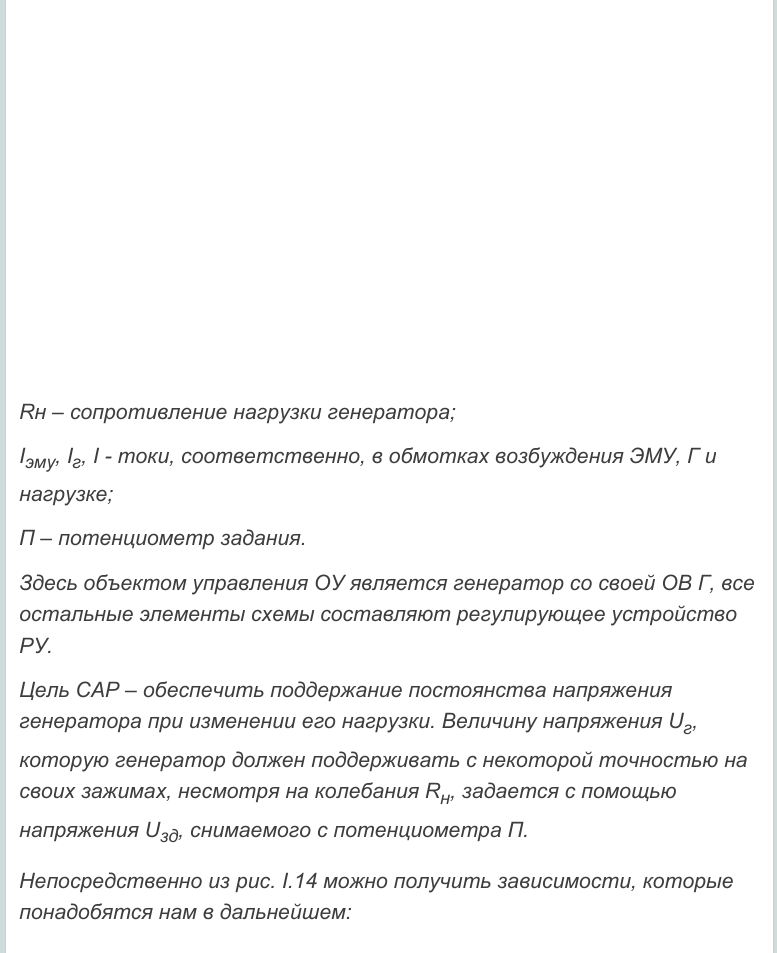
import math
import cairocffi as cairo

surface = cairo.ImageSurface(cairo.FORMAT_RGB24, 777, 953)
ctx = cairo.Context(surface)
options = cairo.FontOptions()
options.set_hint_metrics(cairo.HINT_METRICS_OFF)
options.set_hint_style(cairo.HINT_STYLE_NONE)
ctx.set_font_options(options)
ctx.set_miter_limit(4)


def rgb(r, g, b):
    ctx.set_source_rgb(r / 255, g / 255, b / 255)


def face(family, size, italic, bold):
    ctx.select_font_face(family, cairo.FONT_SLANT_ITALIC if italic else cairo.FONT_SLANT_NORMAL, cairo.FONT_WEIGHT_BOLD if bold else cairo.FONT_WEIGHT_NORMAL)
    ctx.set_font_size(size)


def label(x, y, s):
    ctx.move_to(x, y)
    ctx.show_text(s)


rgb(208, 219, 219)
ctx.paint()
rgb(255, 255, 255)
ctx.rectangle(5.5, -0.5, 768, 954)
ctx.fill_preserve()
rgb(208, 207, 207)
ctx.set_line_width(1)
ctx.stroke()
face('Arial', 21.25, 1, 0)
rgb(61, 61, 61)
label(19, 419, 'Rн – сопротивление нагрузки генератора;')
label(19, 463, 'I')
face('Arial', 18, 1, 0)
label(25, 468, 'эму')
face('Arial', 21.25, 1, 0)
label(55, 463, ', I')
face('Arial', 18, 1, 0)
label(72, 468, 'г')
face('Arial', 21.25, 1, 0)
label(81, 463, ', I - токи, соответственно, в обмотках возбуждения ЭМУ, Г и')
label(19, 501, 'нагрузке;')
label(19, 545, 'П – потенциометр задания.')
label(19, 590, 'Здесь объектом управления ОУ является генератор со своей ОВ Г, все')
label(19, 621, 'остальные элементы схемы составляют регулирующее устройство')
label(19, 653, 'РУ.')
label(19, 697, 'Цель САР – обеспечить поддержание постоянства напряжения')
label(19, 728, 'генератора при изменении его нагрузки. Величину напряжения U')
face('Arial', 18, 1, 0)
label(683, 734, 'г')
face('Arial', 21.25, 1, 0)
label(692, 728, ',')
label(19, 767, 'которую генератор должен поддерживать с некоторой точностью на')
label(19, 798, 'своих зажимах, несмотря на колебания R')
face('Arial', 18, 1, 0)
label(440, 804, 'н')
face('Arial', 21.25, 1, 0)
label(450, 798, ', задается с помощью')
label(19, 837, 'напряжения U')
face('Arial', 18, 1, 0)
label(160, 842, 'зд')
face('Arial', 21.25, 1, 0)
label(178, 837, ', снимаемого с потенциометра П.')
label(19, 888, 'Непосредственно из рис. I.14 можно получить зависимости, которые')
label(19, 919, 'понадобятся нам в дальнейшем:')
surface.write_to_png('render.png')
